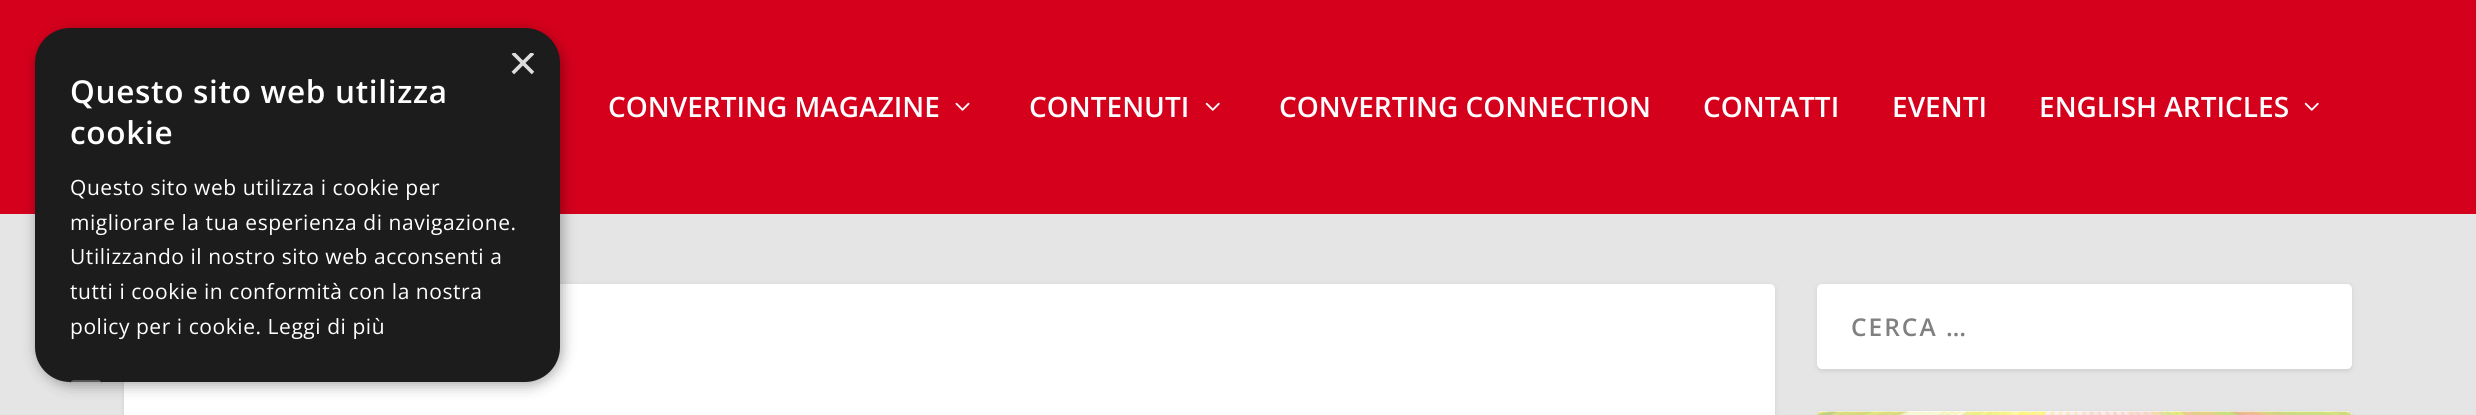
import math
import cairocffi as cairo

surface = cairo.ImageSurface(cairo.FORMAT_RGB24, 2476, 415)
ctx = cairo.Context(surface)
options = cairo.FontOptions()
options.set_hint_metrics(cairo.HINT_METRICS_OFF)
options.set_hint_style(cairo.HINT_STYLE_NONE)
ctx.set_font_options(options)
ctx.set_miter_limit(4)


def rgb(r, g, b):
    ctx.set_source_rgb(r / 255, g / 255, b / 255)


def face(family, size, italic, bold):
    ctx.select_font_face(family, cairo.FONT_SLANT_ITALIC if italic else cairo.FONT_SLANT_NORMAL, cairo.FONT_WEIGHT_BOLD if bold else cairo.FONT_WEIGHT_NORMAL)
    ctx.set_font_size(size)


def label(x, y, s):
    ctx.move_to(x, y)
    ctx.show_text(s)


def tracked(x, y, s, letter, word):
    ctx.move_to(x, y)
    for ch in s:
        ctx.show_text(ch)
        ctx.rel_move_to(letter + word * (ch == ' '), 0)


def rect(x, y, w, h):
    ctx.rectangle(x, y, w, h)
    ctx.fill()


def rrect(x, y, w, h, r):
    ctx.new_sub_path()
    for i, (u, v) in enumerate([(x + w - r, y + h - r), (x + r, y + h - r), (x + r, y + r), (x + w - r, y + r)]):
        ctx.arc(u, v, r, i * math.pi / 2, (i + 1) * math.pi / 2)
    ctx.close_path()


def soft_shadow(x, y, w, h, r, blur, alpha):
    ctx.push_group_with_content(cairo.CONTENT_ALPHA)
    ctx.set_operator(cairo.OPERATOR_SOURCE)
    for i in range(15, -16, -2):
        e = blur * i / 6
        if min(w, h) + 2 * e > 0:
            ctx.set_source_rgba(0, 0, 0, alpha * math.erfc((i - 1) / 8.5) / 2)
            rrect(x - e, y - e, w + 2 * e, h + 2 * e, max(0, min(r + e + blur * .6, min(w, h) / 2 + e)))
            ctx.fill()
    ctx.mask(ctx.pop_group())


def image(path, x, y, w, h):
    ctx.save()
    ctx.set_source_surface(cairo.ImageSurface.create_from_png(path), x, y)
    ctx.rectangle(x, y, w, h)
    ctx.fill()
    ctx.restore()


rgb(229, 229, 229)
ctx.paint()
rgb(213, 0, 28)
rect(0, 0, 2476, 214)
rgb(0, 0, 0)
soft_shadow(124, 285, 1651, 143, 5, 2.5, 0.1)
rgb(255, 255, 255)
rrect(124, 284, 1651, 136, 5)
ctx.fill()
rgb(0, 0, 0)
soft_shadow(37, 32, 525, 353, 35, 7, 0.35)
rgb(28, 28, 28)
rrect(35, 28, 525, 354, 35)
ctx.fill()
ctx.save()
ctx.rectangle(508, 53, 26, 26)
ctx.clip()
face('Liberation Sans', 51, 0, 0)
rgb(221, 221, 221)
label(508, 80, '×')
ctx.restore()
face('Open Sans SemiBold', 31.5, 0, 0)
rgb(255, 255, 255)
tracked(70, 103, 'Questo sito web utilizza', 0.7, 0)
tracked(70, 144, 'cookie', 0.7, 0)
face('Open Sans', 21, 0, 0)
tracked(70, 195, 'Questo sito web utilizza i cookie per', 0.55, 0)
tracked(70, 230, 'migliorare la tua esperienza di navigazione.', 0.55, 0)
tracked(70, 264, 'Utilizzando il nostro sito web acconsenti a', 0.55, 0)
tracked(70, 299, 'tutti i cookie in conformità con la nostra', 0.55, 0)
tracked(70, 334, 'policy per i cookie. Leggi di più', 0.55, 0)
rgb(87, 87, 87)
ctx.new_path()
ctx.move_to(74, 380)
ctx.line_to(98, 380)
ctx.curve_to(100, 380, 102, 382, 102, 384)
ctx.line_to(102, 382)
ctx.line_to(70, 382)
ctx.line_to(70, 384)
ctx.curve_to(70, 382, 72, 380, 74, 380)
ctx.close_path()
ctx.fill()
face('Open Sans SemiBold', 28, 0, 0)
rgb(255, 255, 255)
label(608, 117, 'CONVERTING MAGAZINE')
image('image0.png', 955, 102, 15, 9)
label(1029, 117, 'CONTENUTI')
image('image1.png', 1205, 102, 15, 9)
label(1279, 117, 'CONVERTING CONNECTION')
label(1703, 117, 'CONTATTI')
label(1892, 117, 'EVENTI')
label(2039, 117, 'ENGLISH ARTICLES')
image('image1.png', 2304, 102, 15, 9)
rgb(0, 0, 0)
soft_shadow(1817, 285, 535, 86, 5, 2.5, 0.1)
rgb(255, 255, 255)
rrect(1817, 284, 535, 85, 5)
ctx.fill()
face('Open Sans SemiBold', 24.5, 0, 0)
rgb(128, 128, 128)
tracked(1851, 336, 'CERCA …', 2, 0)
rgb(0, 0, 0)
soft_shadow(1817, 413, 535, 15, 5, 2.5, 0.1)
rgb(255, 255, 255)
rrect(1817, 411, 535, 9, 5)
ctx.fill()
image('image2.png', 1817, 411, 535, 4)
surface.write_to_png('render.png')
